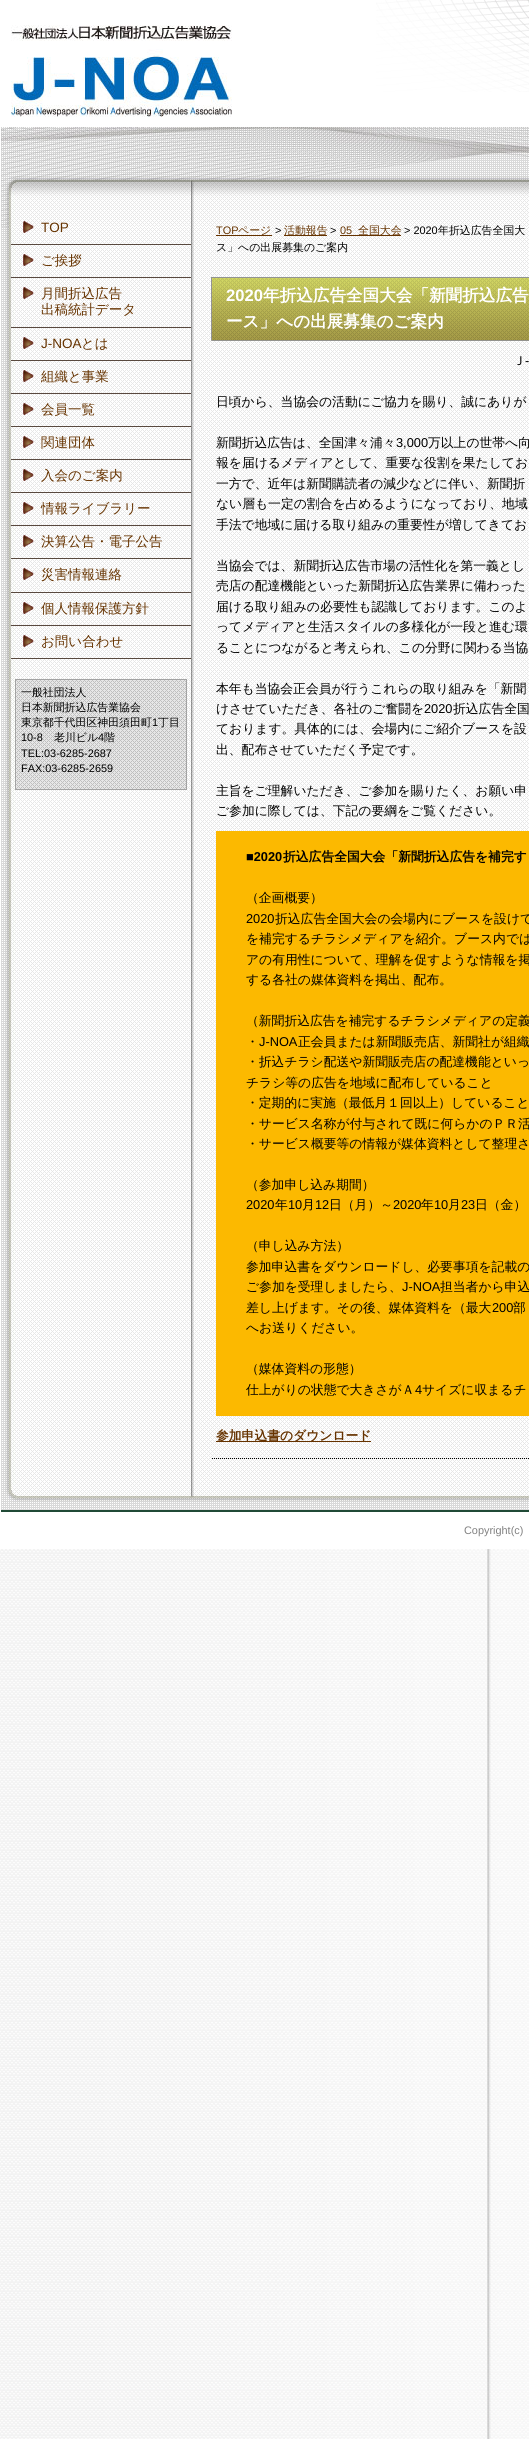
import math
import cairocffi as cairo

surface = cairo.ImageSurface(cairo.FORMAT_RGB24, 529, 2439)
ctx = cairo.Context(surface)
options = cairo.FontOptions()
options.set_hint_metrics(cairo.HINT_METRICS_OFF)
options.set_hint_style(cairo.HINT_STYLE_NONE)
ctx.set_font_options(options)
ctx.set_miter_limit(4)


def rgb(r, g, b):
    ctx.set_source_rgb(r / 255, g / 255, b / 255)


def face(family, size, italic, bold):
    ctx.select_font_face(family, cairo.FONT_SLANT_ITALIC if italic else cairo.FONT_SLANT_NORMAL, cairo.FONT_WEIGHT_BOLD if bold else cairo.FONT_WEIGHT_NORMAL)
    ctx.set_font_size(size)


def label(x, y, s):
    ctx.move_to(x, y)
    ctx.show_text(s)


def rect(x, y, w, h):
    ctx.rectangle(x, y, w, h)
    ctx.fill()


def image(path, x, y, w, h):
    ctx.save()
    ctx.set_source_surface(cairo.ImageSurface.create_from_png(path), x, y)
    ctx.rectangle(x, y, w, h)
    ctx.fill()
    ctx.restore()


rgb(255, 255, 255)
ctx.paint()
image('image0.png', 0, 1549, 529, 890)
image('image1.png', 1, 227, 528, 1283)
image('image2.png', 376, 0, 153, 92)
image('image3.png', 11, 25, 221, 92)
image('image4.png', 5, 1485, 524, 25)
image('image5.png', 1, 127, 528, 100)
image('image6.png', 23, 221, 11, 12)
rgb(89, 73, 63)
rect(11, 244, 180, 1)
face('Liberation Sans', 13.5, 0, 0)
rgb(102, 51, 0)
label(41, 232, 'TOP')
image('image7.png', 23, 254, 11, 12)
rgb(89, 73, 63)
rect(11, 277, 180, 1)
face('WenQuanYi Zen Hei Medium', 13.5, 0, 0)
rgb(102, 51, 0)
label(41, 265, 'ご挨拶')
image('image8.png', 23, 287, 11, 12)
rgb(89, 73, 63)
rect(11, 327, 180, 1)
rgb(102, 51, 0)
label(41, 298, '月間折込広告')
label(41, 314, '出稿統計データ')
image('image9.png', 23, 337, 11, 12)
rgb(89, 73, 63)
rect(11, 360, 180, 1)
face('Liberation Sans', 13.5, 0, 0)
rgb(102, 51, 0)
label(41, 348, 'J-NOA')
face('WenQuanYi Zen Hei Medium', 13.5, 0, 0)
label(81, 348, 'とは')
image('image10.png', 23, 370, 11, 12)
rgb(89, 73, 63)
rect(11, 393, 180, 1)
rgb(102, 51, 0)
label(41, 381, '組織と事業')
image('image11.png', 23, 403, 11, 12)
rgb(89, 73, 63)
rect(11, 426, 180, 1)
rgb(102, 51, 0)
label(41, 414, '会員一覧')
image('image12.png', 23, 436, 11, 12)
rgb(89, 73, 63)
rect(11, 459, 180, 1)
rgb(102, 51, 0)
label(41, 447, '関連団体')
image('image13.png', 23, 469, 11, 12)
rgb(89, 73, 63)
rect(11, 492, 180, 1)
rgb(102, 51, 0)
label(41, 480, '入会のご案内')
image('image14.png', 23, 502, 11, 12)
rgb(89, 73, 63)
rect(11, 525, 180, 1)
rgb(102, 51, 0)
label(41, 513, '情報ライブラリー')
image('image11.png', 23, 535, 11, 12)
rgb(89, 73, 63)
rect(11, 558, 180, 1)
rgb(102, 51, 0)
label(41, 546, '決算公告・電子公告')
image('image15.png', 23, 568, 11, 12)
rgb(89, 73, 63)
rect(11, 592, 180, 1)
rgb(102, 51, 0)
label(41, 579, '災害情報連絡')
image('image16.png', 23, 602, 11, 12)
rgb(89, 73, 63)
rect(11, 625, 180, 1)
rgb(102, 51, 0)
label(41, 613, '個人情報保護方針')
image('image17.png', 23, 635, 11, 12)
rgb(89, 73, 63)
rect(11, 658, 180, 1)
rgb(102, 51, 0)
label(41, 646, 'お問い合わせ')
image('image18.png', 16, 680, 170, 109)
ctx.rectangle(15.5, 679.5, 171, 110)
rgb(163, 163, 163)
ctx.set_line_width(1)
ctx.stroke()
face('WenQuanYi Zen Hei Medium', 10.9, 0, 0)
rgb(0, 0, 0)
label(21, 696, '一般社団法人')
label(21, 711, '日本新聞折込広告業協会')
label(21, 726, '東京都千代田区神田須田町')
face('Liberation Sans', 10.9, 0, 0)
label(152, 726, '1')
face('WenQuanYi Zen Hei Medium', 10.9, 0, 0)
label(158, 726, '丁目')
face('Liberation Sans', 10.9, 0, 0)
label(21, 741, '10-8')
face('WenQuanYi Zen Hei Medium', 10.9, 0, 0)
label(54, 741, '老川ビル')
face('Liberation Sans', 10.9, 0, 0)
label(98, 741, '4')
face('WenQuanYi Zen Hei Medium', 10.9, 0, 0)
label(104, 741, '階')
face('Liberation Sans', 10.9, 0, 0)
label(21, 757, 'TEL:03-6285-2687')
label(21, 772, 'FAX:03-6285-2659')
rgb(102, 51, 0)
label(216, 234, 'TOP')
rect(216, 235, 56, 1)
face('WenQuanYi Zen Hei Medium', 10.9, 0, 0)
label(238, 234, 'ページ')
face('Liberation Sans', 10.9, 0, 0)
rgb(0, 0, 0)
label(275, 234, '>')
rgb(102, 51, 0)
rect(284, 235, 43, 1)
face('WenQuanYi Zen Hei Medium', 10.9, 0, 0)
label(284, 234, '活動報告')
face('Liberation Sans', 10.9, 0, 0)
rgb(0, 0, 0)
label(330, 234, '>')
rgb(102, 51, 0)
label(340, 234, '05')
rect(340, 235, 61, 1)
face('WenQuanYi Zen Hei Medium', 10.9, 0, 0)
label(358, 234, '全国大会')
face('Liberation Sans', 10.9, 0, 0)
rgb(0, 0, 0)
label(404, 234, '> 2020')
face('WenQuanYi Zen Hei Medium', 10.9, 0, 0)
label(438, 234, '年折込広告全国大')
label(216, 251, 'ス」への出展募集のご案内')
image('image19.png', 211, 278, 318, 63)
rgb(146, 148, 145)
rect(211, 277, 318, 1)
face('Liberation Sans', 16.6, 0, 1)
rgb(255, 255, 255)
label(226, 301, '2020')
face('WenQuanYi Zen Hei', 16.6, 0, 1)
label(263, 301, '年折込広告全国大会「新聞折込広告')
label(226, 327, 'ース」への出展募集のご案内')
face('WenQuanYi Zen Hei Medium', 12.8, 0, 0)
rgb(0, 0, 0)
label(513, 365, 'Ｊ')
face('Liberation Sans', 12.8, 0, 0)
label(525, 365, '-')
face('WenQuanYi Zen Hei Medium', 12.8, 0, 0)
label(216, 406, '日頃から、当協会の活動にご協力を賜り、誠にありが')
label(216, 447, '新聞折込広告は、全国津々浦々')
face('Liberation Sans', 12.8, 0, 0)
label(396, 447, '3,000')
face('WenQuanYi Zen Hei Medium', 12.8, 0, 0)
label(428, 447, '万以上の世帯へ向')
label(216, 467, '報を届けるメディアとして、重要な役割を果たしてお')
label(216, 488, '一方で、近年は新聞購読者の減少などに伴い、新聞折')
label(216, 508, 'ない層も一定の割合を占めるようになっており、地域')
label(216, 529, '手法で地域に届ける取り組みの重要性が増してきてお')
label(216, 570, '当協会では、新聞折込広告市場の活性化を第一義とし')
label(216, 590, '売店の配達機能といった新聞折込広告業界に備わった')
label(216, 611, '届ける取り組みの必要性も認識しております。このよ')
label(216, 631, 'ってメディアと生活スタイルの多様化が一段と進む環')
label(216, 652, 'ることにつながると考えられ、この分野に関わる当協')
label(216, 693, '本年も当協会正会員が行うこれらの取り組みを「新聞')
label(216, 713, 'けさせていただき、各社のご奮闘を')
face('Liberation Sans', 12.8, 0, 0)
label(424, 713, '2020')
face('WenQuanYi Zen Hei Medium', 12.8, 0, 0)
label(453, 713, '折込広告全国')
label(216, 733, 'ております。具体的には、会場内にご紹介ブースを設')
label(216, 754, '出、配布させていただく予定です。')
label(216, 795, '主旨をご理解いただき、ご参加を賜りたく、お願い申')
label(216, 815, 'ご参加に際しては、下記の要綱をご覧ください。')
rgb(252, 185, 0)
rect(216, 831, 313, 585)
face('Liberation Sans', 12.8, 0, 1)
rgb(0, 0, 0)
label(246, 861, '■2020')
face('WenQuanYi Zen Hei', 12.8, 0, 1)
label(283, 861, '折込広告全国大会「新聞折込広告を補完す')
face('WenQuanYi Zen Hei Medium', 12.8, 0, 0)
label(246, 902, '（企画概要）')
face('Liberation Sans', 12.8, 0, 0)
label(246, 923, '2020')
face('WenQuanYi Zen Hei Medium', 12.8, 0, 0)
label(275, 923, '折込広告全国大会の会場内にブースを設けて')
label(246, 943, 'を補完するチラシメディアを紹介。ブース内では')
label(246, 964, 'アの有用性について、理解を促すような情報を掲')
label(246, 984, 'する各社の媒体資料を掲出、配布。')
label(246, 1025, '（新聞折込広告を補完するチラシメディアの定義')
label(246, 1046, '・')
face('Liberation Sans', 12.8, 0, 0)
label(259, 1046, 'J-NOA')
face('WenQuanYi Zen Hei Medium', 12.8, 0, 0)
label(298, 1046, '正会員または新聞販売店、新聞社が組織')
label(246, 1066, '・折込チラシ配送や新聞販売店の配達機能といっ')
label(246, 1087, 'チラシ等の広告を地域に配布していること')
label(246, 1107, '・定期的に実施（最低月１回以上）していること')
label(246, 1128, '・サービス名称が付与されて既に何らかのＰＲ活')
label(246, 1148, '・サービス概要等の情報が媒体資料として整理さ')
label(246, 1189, '（参加申し込み期間）')
face('Liberation Sans', 12.8, 0, 0)
label(246, 1209, '2020')
face('WenQuanYi Zen Hei Medium', 12.8, 0, 0)
label(275, 1209, '年')
face('Liberation Sans', 12.8, 0, 0)
label(288, 1209, '10')
face('WenQuanYi Zen Hei Medium', 12.8, 0, 0)
label(302, 1209, '月')
face('Liberation Sans', 12.8, 0, 0)
label(315, 1209, '12')
face('WenQuanYi Zen Hei Medium', 12.8, 0, 0)
label(329, 1209, '日（月）～')
face('Liberation Sans', 12.8, 0, 0)
label(393, 1209, '2020')
face('WenQuanYi Zen Hei Medium', 12.8, 0, 0)
label(421, 1209, '年')
face('Liberation Sans', 12.8, 0, 0)
label(434, 1209, '10')
face('WenQuanYi Zen Hei Medium', 12.8, 0, 0)
label(448, 1209, '月')
face('Liberation Sans', 12.8, 0, 0)
label(461, 1209, '23')
face('WenQuanYi Zen Hei Medium', 12.8, 0, 0)
label(475, 1209, '日（金）')
label(246, 1250, '（申し込み方法）')
label(246, 1271, '参加申込書をダウンロードし、必要事項を記載の')
label(246, 1291, 'ご参加を受理しましたら、')
face('Liberation Sans', 12.8, 0, 0)
label(402, 1291, 'J-NOA')
face('WenQuanYi Zen Hei Medium', 12.8, 0, 0)
label(440, 1291, '担当者から申込')
label(246, 1312, '差し上げます。その後、媒体資料を（最大')
face('Liberation Sans', 12.8, 0, 0)
label(492, 1312, '200')
face('WenQuanYi Zen Hei Medium', 12.8, 0, 0)
label(513, 1312, '部')
label(246, 1332, 'へお送りください。')
label(246, 1373, '（媒体資料の形態）')
label(246, 1394, '仕上がりの状態で大きさがＡ')
face('Liberation Sans', 12.8, 0, 0)
label(415, 1394, '4')
face('WenQuanYi Zen Hei Medium', 12.8, 0, 0)
label(422, 1394, 'サイズに収まるチ')
rgb(102, 51, 0)
rect(216, 1441, 155, 1)
face('WenQuanYi Zen Hei', 12.8, 0, 1)
label(216, 1440, '参加申込書のダウンロード')
image('image20.png', 212, 1458, 317, 1)
rgb(32, 74, 54)
rect(1, 1510, 528, 2)
face('Liberation Sans', 10.9, 0, 0)
rgb(129, 129, 129)
label(464, 1534, 'Copyright(c)')
surface.write_to_png('render.png')
